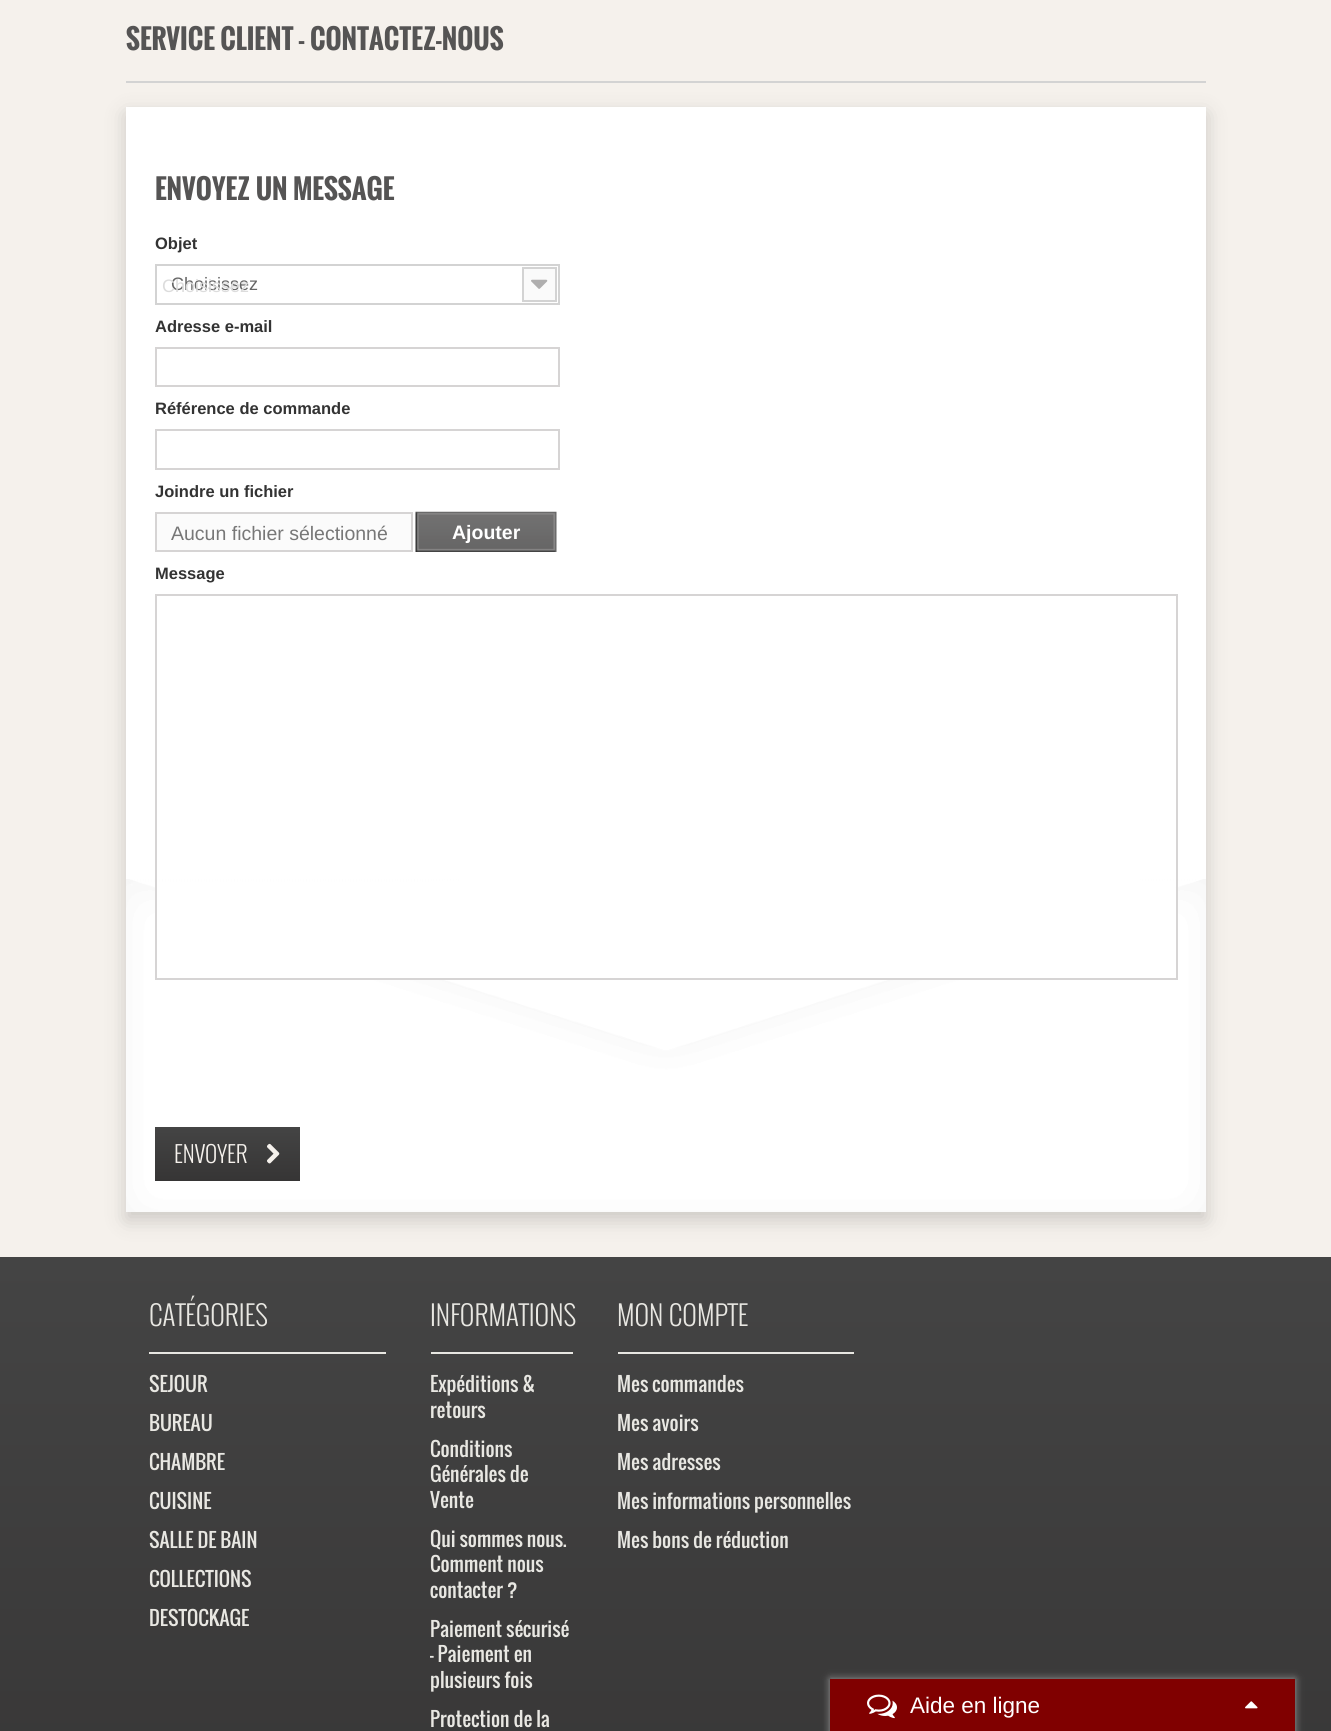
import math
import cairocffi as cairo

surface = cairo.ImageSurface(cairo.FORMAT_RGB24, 1331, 1731)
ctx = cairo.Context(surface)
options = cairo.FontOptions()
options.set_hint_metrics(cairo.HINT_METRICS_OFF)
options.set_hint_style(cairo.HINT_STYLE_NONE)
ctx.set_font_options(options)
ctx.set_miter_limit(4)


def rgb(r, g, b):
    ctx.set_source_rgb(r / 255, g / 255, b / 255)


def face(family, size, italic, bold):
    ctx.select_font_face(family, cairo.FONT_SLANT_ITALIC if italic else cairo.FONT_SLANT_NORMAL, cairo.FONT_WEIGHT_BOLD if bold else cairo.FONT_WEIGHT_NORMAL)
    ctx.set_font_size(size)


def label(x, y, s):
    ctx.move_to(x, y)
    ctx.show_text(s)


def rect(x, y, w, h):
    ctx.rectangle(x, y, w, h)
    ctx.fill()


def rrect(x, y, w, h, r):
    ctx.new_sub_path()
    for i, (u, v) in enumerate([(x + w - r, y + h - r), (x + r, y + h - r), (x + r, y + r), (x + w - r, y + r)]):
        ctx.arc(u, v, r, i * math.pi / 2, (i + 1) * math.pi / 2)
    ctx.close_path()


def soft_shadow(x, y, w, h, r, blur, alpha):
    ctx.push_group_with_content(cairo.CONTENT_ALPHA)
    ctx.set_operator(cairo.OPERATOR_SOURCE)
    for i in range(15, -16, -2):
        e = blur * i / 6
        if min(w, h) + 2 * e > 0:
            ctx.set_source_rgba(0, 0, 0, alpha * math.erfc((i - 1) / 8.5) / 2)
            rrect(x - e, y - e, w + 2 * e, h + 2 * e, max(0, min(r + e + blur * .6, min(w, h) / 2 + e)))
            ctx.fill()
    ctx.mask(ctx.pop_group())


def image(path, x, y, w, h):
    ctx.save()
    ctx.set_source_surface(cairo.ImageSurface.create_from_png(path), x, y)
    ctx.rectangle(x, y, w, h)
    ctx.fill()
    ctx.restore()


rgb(245, 241, 236)
ctx.paint()
rgb(211, 211, 211)
rect(126, 81, 1080, 2)
face('Oswald', 27, 0, 1)
rgb(85, 84, 84)
label(126, 50, 'SERVICE CLIENT - CONTACTEZ-NOUS')
rgb(0, 0, 0)
soft_shadow(126, 114, 1080, 1106, 0, 10, 0.17)
rgb(255, 255, 255)
rect(126, 107, 1080, 1105)
image('image0.png', 126, 879, 1080, 333)
rgb(85, 84, 84)
label(155, 200, 'ENVOYEZ UN MESSAGE')
face('Liberation Sans', 16.5, 0, 1)
rgb(51, 51, 51)
label(155, 249, 'Objet')
ctx.rectangle(156, 265, 403, 39)
rgb(211, 211, 211)
ctx.stroke()
face('Liberation Sans', 18, 0, 0)
rgb(102, 102, 102)
label(171, 290, 'Choisissez')
rgb(250, 250, 250)
ctx.rectangle(523, 268, 33, 33)
ctx.fill_preserve()
rgb(211, 211, 211)
ctx.stroke()
image('image1.png', 531, 279, 17, 10)
rgb(220, 220, 220)
label(162, 292, 'Choisissez')
face('Liberation Sans', 16.5, 0, 1)
rgb(51, 51, 51)
label(155, 332, 'Adresse e-mail')
ctx.rectangle(156, 348, 403, 38)
rgb(214, 212, 212)
ctx.stroke()
rgb(51, 51, 51)
label(155, 414, 'Référence de commande')
ctx.rectangle(156, 430, 403, 39)
rgb(214, 212, 212)
ctx.stroke()
rgb(51, 51, 51)
label(155, 497, 'Joindre un fichier')
rgb(251, 251, 251)
ctx.rectangle(156, 513, 256, 38)
ctx.fill_preserve()
rgb(214, 212, 212)
ctx.stroke()
face('Liberation Sans', 19.5, 0, 0)
rgb(119, 119, 119)
label(171, 540, 'Aucun fichier sélectionné')
image('image2.png', 415, 511, 142, 41)
face('Liberation Sans', 19.5, 0, 1)
rgb(255, 255, 255)
label(452, 539, 'Ajouter')
face('Liberation Sans', 16.5, 0, 1)
rgb(51, 51, 51)
label(155, 579, 'Message')
rgb(255, 255, 255)
rect(157, 888, 1019, 90)
ctx.rectangle(156, 595, 1021, 384)
rgb(214, 212, 212)
ctx.stroke()
gradient = cairo.LinearGradient(227, 1127, 227, 1181)
gradient.add_color_stop_rgba(0, 0.267, 0.267, 0.267, 1)
gradient.add_color_stop_rgba(1, 0.212, 0.208, 0.208, 1)
ctx.set_source(gradient)
rect(155, 1127, 145, 54)
face('Oswald Light', 22.5, 0, 0)
rgb(245, 241, 236)
label(174, 1163, 'ENVOYER')
image('image3.png', 267, 1143, 13, 21)
gradient = cairo.LinearGradient(666, 1257, 666, 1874)
gradient.add_color_stop_rgba(0, 0.267, 0.267, 0.267, 1)
gradient.add_color_stop_rgba(1, 0.212, 0.208, 0.208, 1)
ctx.set_source(gradient)
rect(0, 1257, 1331, 474)
rgb(232, 231, 226)
rect(149, 1352, 237, 2)
face('Oswald Light', 27, 0, 0)
label(149, 1326, 'CATÉGORIES')
face('Oswald', 19.5, 0, 0)
label(149, 1392, 'SEJOUR')
label(149, 1431, 'BUREAU')
label(149, 1470, 'CHAMBRE')
label(149, 1509, 'CUISINE')
label(149, 1548, 'SALLE DE BAIN')
label(149, 1587, 'COLLECTIONS')
label(149, 1626, 'DESTOCKAGE')
rect(431, 1352, 142, 2)
face('Oswald Light', 27, 0, 0)
label(430, 1326, 'INFORMATIONS')
face('Oswald', 19.5, 0, 0)
label(430, 1392, 'Expéditions &')
label(430, 1418, 'retours')
label(430, 1457, 'Conditions')
label(430, 1482, 'Générales de')
label(430, 1508, 'Vente')
label(430, 1547, 'Qui sommes nous.')
label(430, 1572, 'Comment nous')
label(430, 1598, 'contacter ?')
label(430, 1637, 'Paiement sécurisé')
label(430, 1662, '- Paiement en')
label(430, 1688, 'plusieurs fois')
label(430, 1727, 'Protection de la')
rect(618, 1352, 236, 2)
face('Oswald Light', 27, 0, 0)
label(617, 1326, 'MON COMPTE')
face('Oswald', 19.5, 0, 0)
label(617, 1392, 'Mes commandes')
label(617, 1431, 'Mes avoirs')
label(617, 1470, 'Mes adresses')
label(617, 1509, 'Mes informations personnelles')
label(617, 1548, 'Mes bons de réduction')
rgb(153, 153, 153)
soft_shadow(830, 1679, 465, 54, 0, 4, 1)
rgb(128, 0, 0)
rect(830, 1679, 465, 52)
image('image4.png', 867, 1694, 30, 25)
face('Liberation Sans', 22.5, 0, 0)
rgb(255, 255, 255)
label(910, 1713, 'Aide en ligne')
image('image5.png', 1245, 1701, 13, 8)
surface.write_to_png('render.png')
